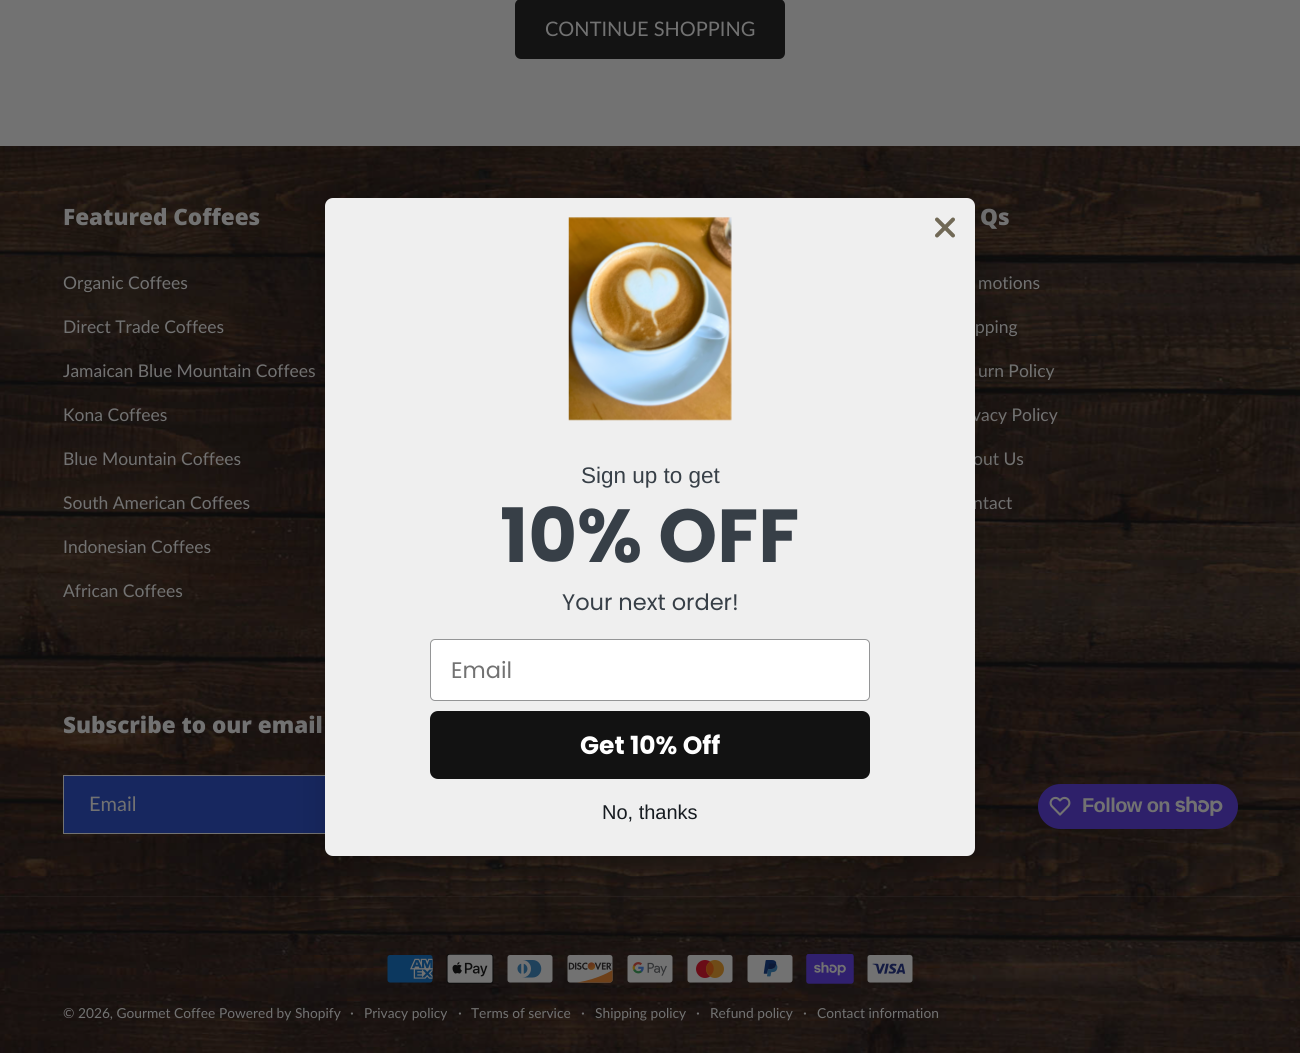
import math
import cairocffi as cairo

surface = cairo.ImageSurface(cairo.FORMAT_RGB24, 1300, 1053)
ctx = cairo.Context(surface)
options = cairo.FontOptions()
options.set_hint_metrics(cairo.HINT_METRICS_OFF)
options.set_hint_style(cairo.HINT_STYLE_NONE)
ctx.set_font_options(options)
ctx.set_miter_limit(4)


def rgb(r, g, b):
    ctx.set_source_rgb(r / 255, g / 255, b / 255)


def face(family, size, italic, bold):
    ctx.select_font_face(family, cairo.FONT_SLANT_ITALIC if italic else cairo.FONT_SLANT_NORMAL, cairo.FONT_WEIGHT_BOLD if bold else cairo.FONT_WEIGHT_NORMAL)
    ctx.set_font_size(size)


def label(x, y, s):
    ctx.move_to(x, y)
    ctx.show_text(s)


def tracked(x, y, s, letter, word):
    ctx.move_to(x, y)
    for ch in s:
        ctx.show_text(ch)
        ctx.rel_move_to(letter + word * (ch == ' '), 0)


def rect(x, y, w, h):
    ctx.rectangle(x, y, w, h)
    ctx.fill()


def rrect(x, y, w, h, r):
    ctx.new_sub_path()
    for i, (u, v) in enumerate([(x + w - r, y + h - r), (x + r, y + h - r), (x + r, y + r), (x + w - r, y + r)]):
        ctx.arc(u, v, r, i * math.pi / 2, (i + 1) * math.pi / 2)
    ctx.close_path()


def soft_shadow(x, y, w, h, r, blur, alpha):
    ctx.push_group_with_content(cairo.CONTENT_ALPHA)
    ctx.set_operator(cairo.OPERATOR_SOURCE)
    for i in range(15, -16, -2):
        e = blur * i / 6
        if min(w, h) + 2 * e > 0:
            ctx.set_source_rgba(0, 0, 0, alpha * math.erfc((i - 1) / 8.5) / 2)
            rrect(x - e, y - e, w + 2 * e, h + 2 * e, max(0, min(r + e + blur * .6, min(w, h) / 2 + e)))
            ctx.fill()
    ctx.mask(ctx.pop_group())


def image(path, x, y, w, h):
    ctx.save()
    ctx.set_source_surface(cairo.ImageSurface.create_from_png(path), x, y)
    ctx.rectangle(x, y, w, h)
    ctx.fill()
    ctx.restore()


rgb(114, 114, 114)
ctx.paint()
rgb(19, 19, 19)
rrect(515, -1, 270, 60, 6)
ctx.fill()
face('Lato', 20, 0, 0)
rgb(114, 114, 114)
label(545, 36, 'CONTINUE SHOPPING')
image('image0.png', 0, 146, 1300, 907)
face('Open Sans ExtraBold', 22.5, 0, 0)
label(63, 225, 'Featured Coffees')
face('Lato', 17.5, 0, 0)
label(63, 289, 'Organic Coffees')
label(63, 333, 'Direct Trade Coffees')
label(63, 377, 'Jamaican Blue Mountain Coffees')
label(63, 421, 'Kona Coffees')
label(63, 465, 'Blue Mountain Coffees')
label(63, 509, 'South American Coffees')
label(63, 553, 'Indonesian Coffees')
label(63, 597, 'African Coffees')
face('Open Sans ExtraBold', 22.5, 0, 0)
label(980, 225, 'Qs')
face('Lato', 17.5, 0, 0)
label(978, 289, 'motions')
label(975, 333, 'pping')
label(978, 377, 'urn Policy')
label(972, 421, 'vacy Policy')
label(973, 465, 'out Us')
label(973, 509, 'ntact')
face('Open Sans ExtraBold', 22.5, 0, 0)
label(63, 733, 'Subscribe to our email')
rgb(23, 39, 95)
rect(64, 776, 261, 57)
ctx.rectangle(63.5, 775.5, 449, 58)
rgb(114, 114, 114)
ctx.set_line_width(1)
ctx.stroke()
face('Lato', 20, 0, 0)
label(89, 811, 'Email')
rgb(46, 32, 106)
rrect(1038, 784, 200, 45, 22.5)
ctx.fill()
image('image1.png', 1049, 796, 22, 20)
face('Liberation Sans', 20, 0, 1)
rgb(114, 114, 114)
tracked(1082, 812, 'Follow on', -0.6, 0)
image('image2.png', 1175, 796, 48, 20)
ctx.set_source_rgba(0.447, 0.447, 0.447, 0.08)
rect(0, 896, 1300, 1)
image('image3.png', 387, 954, 46, 29)
image('image4.png', 446, 954, 48, 30)
image('image5.png', 507, 955, 46, 28)
image('image6.png', 567, 955, 46, 28)
image('image7.png', 627, 955, 46, 28)
image('image8.png', 687, 954, 46, 29)
image('image9.png', 747, 955, 46, 28)
image('image10.png', 806, 954, 48, 30)
image('image11.png', 867, 955, 46, 28)
face('Lato', 13.75, 0, 0)
rgb(114, 114, 114)
label(63, 1018, '© 2026, Gourmet Coffee')
label(219, 1018, 'Powered by Shopify')
face('Lato', 15, 0, 0)
label(350, 1018, '·')
face('Lato', 13.75, 0, 0)
label(364, 1018, 'Privacy policy')
face('Lato', 15, 0, 0)
label(458, 1018, '·')
face('Lato', 13.75, 0, 0)
label(471, 1018, 'Terms of service')
face('Lato', 15, 0, 0)
label(581, 1018, '·')
face('Lato', 13.75, 0, 0)
label(595, 1018, 'Shipping policy')
face('Lato', 15, 0, 0)
label(696, 1018, '·')
face('Lato', 13.75, 0, 0)
label(710, 1018, 'Refund policy')
face('Lato', 15, 0, 0)
label(803, 1018, '·')
face('Lato', 13.75, 0, 0)
label(817, 1018, 'Contact information')
rgb(0, 0, 0)
soft_shadow(325, 198, 650, 658, 8, 19, 0.15)
rgb(239, 239, 239)
rrect(325, 198, 650, 658, 8)
ctx.fill()
ctx.new_path()
ctx.move_to(937, 219.5)
ctx.line_to(953, 235.5)
ctx.move_to(937, 235.5)
ctx.line_to(953, 219.5)
ctx.close_path()
rgb(113, 105, 86)
ctx.set_line_width(4)
ctx.set_line_cap(cairo.LINE_CAP_ROUND)
ctx.set_line_join(cairo.LINE_JOIN_ROUND)
ctx.stroke()
image('image12.png', 568, 217, 164, 204)
face('Liberation Sans', 22.5, 0, 0)
rgb(55, 63, 71)
label(581, 483, 'Sign up to get')
face('Poppins', 75, 0, 1)
label(500, 562, '10% OFF')
face('Poppins', 22.5, 0, 0)
label(562, 610, 'Your next order!')
rgb(255, 255, 255)
rrect(430.5, 639.5, 439, 61, 4.5)
ctx.fill_preserve()
rgb(148, 149, 150)
ctx.set_line_width(1)
ctx.set_line_cap(cairo.LINE_CAP_BUTT)
ctx.set_line_join(cairo.LINE_JOIN_MITER)
ctx.stroke()
rgb(114, 114, 114)
label(451, 678, 'Email')
rgb(18, 18, 18)
rrect(430, 711, 440, 68, 8)
ctx.fill()
face('Poppins', 25, 0, 1)
rgb(255, 255, 255)
label(580, 754, 'Get 10% Off')
face('Liberation Sans', 20, 0, 0)
rgb(22, 27, 32)
label(602, 819, 'No, thanks')
surface.write_to_png('render.png')
